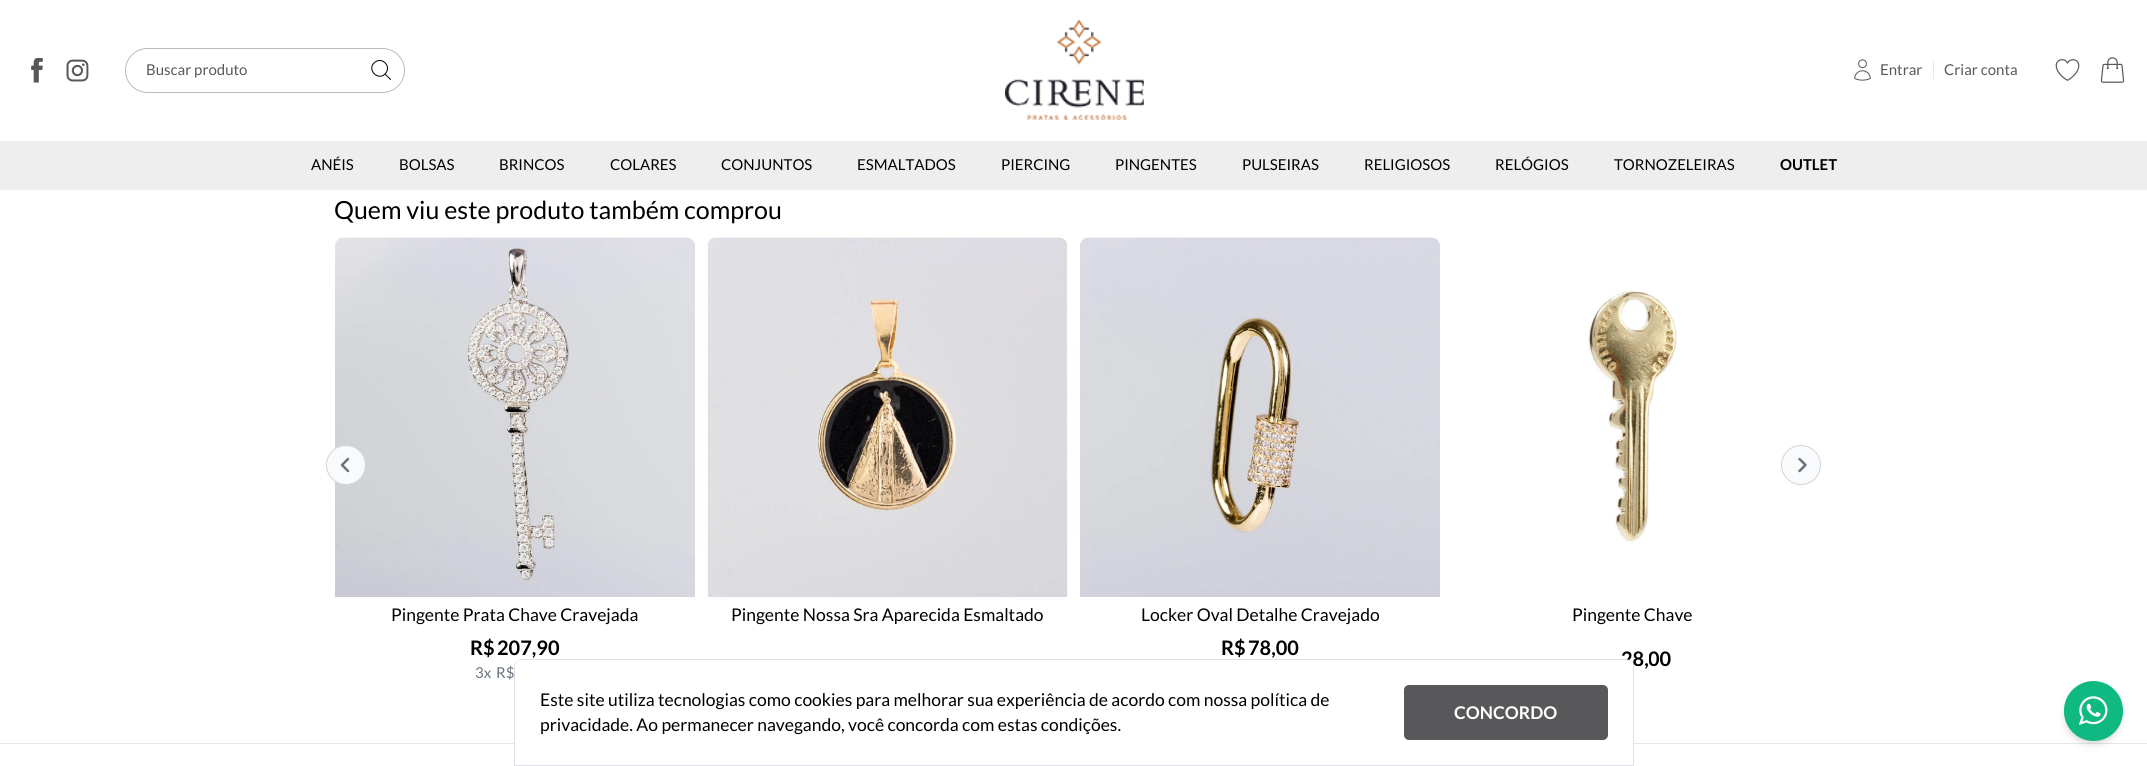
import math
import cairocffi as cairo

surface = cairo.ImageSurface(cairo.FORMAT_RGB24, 2147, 766)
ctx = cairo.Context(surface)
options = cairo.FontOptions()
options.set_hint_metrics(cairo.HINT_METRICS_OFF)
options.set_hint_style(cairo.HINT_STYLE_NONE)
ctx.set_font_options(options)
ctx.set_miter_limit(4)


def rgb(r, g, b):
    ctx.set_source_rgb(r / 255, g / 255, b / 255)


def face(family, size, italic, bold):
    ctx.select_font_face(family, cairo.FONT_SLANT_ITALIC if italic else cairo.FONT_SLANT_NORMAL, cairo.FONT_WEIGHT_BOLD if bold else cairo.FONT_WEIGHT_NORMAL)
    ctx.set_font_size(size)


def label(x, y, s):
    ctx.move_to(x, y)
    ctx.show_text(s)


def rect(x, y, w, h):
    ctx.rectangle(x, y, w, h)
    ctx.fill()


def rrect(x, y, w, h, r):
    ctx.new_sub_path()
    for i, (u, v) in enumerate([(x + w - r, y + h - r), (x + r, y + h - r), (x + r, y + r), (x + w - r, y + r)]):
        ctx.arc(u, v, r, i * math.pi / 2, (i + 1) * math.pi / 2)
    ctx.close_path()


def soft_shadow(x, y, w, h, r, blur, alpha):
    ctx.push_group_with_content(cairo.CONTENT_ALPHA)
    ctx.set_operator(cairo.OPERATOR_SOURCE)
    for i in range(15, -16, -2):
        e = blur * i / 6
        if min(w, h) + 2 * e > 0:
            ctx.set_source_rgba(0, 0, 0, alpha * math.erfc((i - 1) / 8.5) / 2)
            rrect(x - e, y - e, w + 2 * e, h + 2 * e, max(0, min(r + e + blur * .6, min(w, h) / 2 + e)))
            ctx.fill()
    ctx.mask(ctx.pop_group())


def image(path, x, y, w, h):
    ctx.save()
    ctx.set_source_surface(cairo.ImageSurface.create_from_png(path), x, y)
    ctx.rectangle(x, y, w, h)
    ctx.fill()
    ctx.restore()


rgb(255, 255, 255)
ctx.paint()
image('image0.png', 31, 58, 12, 25)
image('image1.png', 66, 59, 23, 23)
rrect(125.5, 48.5, 279, 44, 22)
rgb(187, 187, 187)
ctx.set_line_width(1)
ctx.stroke()
face('Lato', 15, 0, 0)
rgb(88, 88, 90)
label(146, 75, 'Buscar produto')
ctx.new_path()
ctx.move_to(390.5, 79.5)
ctx.line_to(385, 74)
ctx.move_to(385, 74)
ctx.curve_to(392.5, 66.5, 381.5, 55.5, 374, 63)
ctx.curve_to(367, 70, 378, 81, 385, 74)
ctx.close_path()
rgb(0, 0, 0)
ctx.set_line_cap(cairo.LINE_CAP_ROUND)
ctx.set_line_join(cairo.LINE_JOIN_ROUND)
ctx.stroke()
image('image2.png', 1005, 19, 139, 101)
image('image3.png', 1854, 59, 17, 22)
rgb(88, 88, 90)
label(1880, 75, 'Entrar')
rgb(229, 231, 235)
rect(1933, 61, 1, 18)
rgb(88, 88, 90)
label(1944, 75, 'Criar conta')
image('image4.png', 2055, 59, 25, 22)
image('image5.png', 2100, 57, 25, 26)
rgb(238, 238, 238)
rect(0, 141, 2147, 49)
rgb(0, 0, 0)
label(311, 170, 'ANÉIS')
label(399, 170, 'BOLSAS')
label(499, 170, 'BRINCOS')
label(610, 170, 'COLARES')
label(721, 170, 'CONJUNTOS')
label(857, 170, 'ESMALTADOS')
label(1001, 170, 'PIERCING')
label(1115, 170, 'PINGENTES')
label(1242, 170, 'PULSEIRAS')
label(1364, 170, 'RELIGIOSOS')
label(1495, 170, 'RELÓGIOS')
label(1614, 170, 'TORNOZELEIRAS')
face('Lato', 15, 0, 1)
label(1780, 170, 'OUTLET')
face('Lato', 25, 0, 0)
label(334, 219, 'Quem viu este produto também comprou')
image('image6.png', 335, 237, 360, 360)
rgb(249, 250, 251)
ctx.arc(346, 465, 19.5, 0, 2 * math.pi)
ctx.fill_preserve()
rgb(209, 213, 219)
ctx.set_line_cap(cairo.LINE_CAP_BUTT)
ctx.set_line_join(cairo.LINE_JOIN_MITER)
ctx.stroke()
ctx.new_path()
ctx.move_to(348, 471)
ctx.line_to(342, 465)
ctx.line_to(348, 459)
rgb(107, 114, 128)
ctx.set_line_width(2.5)
ctx.set_line_cap(cairo.LINE_CAP_ROUND)
ctx.set_line_join(cairo.LINE_JOIN_ROUND)
ctx.stroke()
rgb(249, 250, 251)
ctx.arc(1801, 465, 19.5, 0, 2 * math.pi)
ctx.fill_preserve()
rgb(209, 213, 219)
ctx.set_line_width(1)
ctx.set_line_cap(cairo.LINE_CAP_BUTT)
ctx.set_line_join(cairo.LINE_JOIN_MITER)
ctx.stroke()
ctx.new_path()
ctx.move_to(1799.5, 459)
ctx.line_to(1805.5, 465)
ctx.line_to(1799.5, 471)
rgb(107, 114, 128)
ctx.set_line_width(2.5)
ctx.set_line_cap(cairo.LINE_CAP_ROUND)
ctx.set_line_join(cairo.LINE_JOIN_ROUND)
ctx.stroke()
face('Lato', 17.5, 0, 0)
rgb(0, 0, 0)
label(391, 621, 'Pingente Prata Chave Cravejada')
face('Lato', 20, 0, 1)
label(470, 655, 'R$')
label(497, 655, '207,90')
face('Lato', 15, 0, 0)
rgb(107, 114, 128)
label(475, 678, '3x')
label(496, 678, 'R$')
image('image7.png', 707, 237, 361, 360)
face('Lato', 17.5, 0, 0)
rgb(0, 0, 0)
label(731, 621, 'Pingente Nossa Sra Aparecida Esmaltado')
image('image8.png', 1080, 237, 360, 360)
label(1141, 621, 'Locker Oval Detalhe Cravejado')
face('Lato', 20, 0, 1)
label(1221, 655, 'R$')
label(1248, 655, '78,00')
image('image9.png', 1588, 291, 89, 251)
face('Lato', 17.5, 0, 0)
label(1572, 621, 'Pingente Chave')
face('Lato', 20, 0, 1)
label(1621, 666, '28,')
ctx.save()
ctx.rectangle(1649, 646, 22, 24)
ctx.clip()
label(1648, 666, '00')
ctx.restore()
rgb(229, 231, 235)
rect(0, 743, 2147, 1)
ctx.new_path()
ctx.move_to(522, 659.5)
ctx.line_to(1626, 659.5)
ctx.curve_to(1630, 659.5, 1633.5, 663, 1633.5, 667)
ctx.line_to(1633.5, 765.5)
ctx.line_to(514.5, 765.5)
ctx.line_to(514.5, 667)
ctx.curve_to(514.5, 663, 518, 659.5, 522, 659.5)
ctx.close_path()
ctx.set_source_rgba(0.82, 0.835, 0.859, 0.7)
ctx.set_line_width(1)
ctx.set_line_cap(cairo.LINE_CAP_BUTT)
ctx.set_line_join(cairo.LINE_JOIN_MITER)
ctx.stroke()
rgb(255, 255, 255)
ctx.new_path()
ctx.move_to(521, 660)
ctx.line_to(1627, 660)
ctx.curve_to(1630.5, 660, 1633, 662.5, 1633, 666)
ctx.line_to(1633, 765)
ctx.line_to(515, 765)
ctx.line_to(515, 666)
ctx.curve_to(515, 662.5, 517.5, 660, 521, 660)
ctx.close_path()
ctx.fill()
face('Lato', 17.5, 0, 0)
rgb(0, 0, 0)
label(540, 706, 'Este site utiliza tecnologias como cookies para melhorar sua experiência de acordo com nossa política de')
label(540, 731, 'privacidade. Ao permanecer navegando, você concorda com estas condições.')
rgb(88, 88, 90)
rrect(1404, 685, 204, 55, 5)
ctx.fill()
face('Lato', 17.5, 0, 1)
rgb(255, 255, 255)
label(1454, 719, 'CONCORDO')
rgb(0, 0, 0)
soft_shadow(2065, 685, 56, 58, 28, 2.5, 0.06)
soft_shadow(2065, 688, 56, 57, 28, 4, 0.1)
rgb(16, 185, 129)
rrect(2064, 681, 59, 60, 29.5)
ctx.fill()
image('image10.png', 2079, 696, 29, 29)
surface.write_to_png('render.png')
